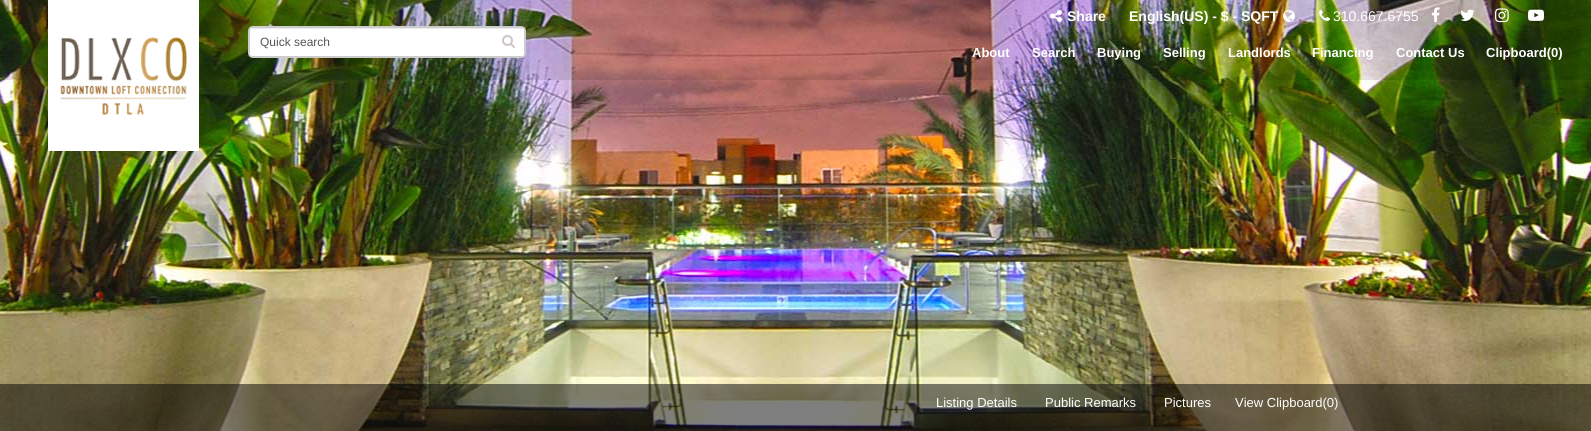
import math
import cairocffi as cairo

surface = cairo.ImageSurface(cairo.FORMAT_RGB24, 1591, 431)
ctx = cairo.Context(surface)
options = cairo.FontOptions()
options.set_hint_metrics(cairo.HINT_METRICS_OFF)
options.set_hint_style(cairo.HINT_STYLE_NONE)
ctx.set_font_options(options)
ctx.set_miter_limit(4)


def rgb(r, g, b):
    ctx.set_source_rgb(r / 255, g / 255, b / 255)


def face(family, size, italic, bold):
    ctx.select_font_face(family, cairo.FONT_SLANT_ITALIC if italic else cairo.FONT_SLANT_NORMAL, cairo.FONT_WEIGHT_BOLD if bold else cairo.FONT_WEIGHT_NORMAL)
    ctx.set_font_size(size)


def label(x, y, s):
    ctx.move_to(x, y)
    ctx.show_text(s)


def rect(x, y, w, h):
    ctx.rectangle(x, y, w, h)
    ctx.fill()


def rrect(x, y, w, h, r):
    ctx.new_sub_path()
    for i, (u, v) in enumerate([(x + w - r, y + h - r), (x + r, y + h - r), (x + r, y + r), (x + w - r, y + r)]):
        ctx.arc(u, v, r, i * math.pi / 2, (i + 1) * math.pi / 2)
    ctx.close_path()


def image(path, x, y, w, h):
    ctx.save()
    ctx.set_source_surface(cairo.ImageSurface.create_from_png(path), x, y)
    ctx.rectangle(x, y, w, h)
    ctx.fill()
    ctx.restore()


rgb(255, 255, 255)
ctx.paint()
image('image0.png', 0, 0, 1591, 431)
ctx.set_source_rgba(0, 0, 0, 0.1)
rect(0, 0, 1591, 80)
image('image1.png', 48, 0, 151, 151)
image('image2.png', 1050, 10, 12, 12)
face('Liberation Sans', 14, 0, 1)
rgb(255, 255, 255)
label(1067, 21, 'Share')
label(1129, 21, 'English(US) - $ - SQFT')
image('image3.png', 1283, 10, 12, 12)
image('image4.png', 1319, 10, 11, 11)
face('Liberation Sans', 14, 0, 0)
label(1333, 21, '310.667.6755')
image('image5.png', 1431, 7, 9, 16)
image('image6.png', 1460, 9, 15, 12)
image('image7.png', 1495, 8, 14, 15)
image('image8.png', 1528, 9, 16, 12)
rrect(248.5, 26.5, 277, 31, 4.5)
rgb(204, 204, 204)
ctx.set_line_width(1)
ctx.stroke()
rgb(255, 255, 255)
rrect(249, 27, 276, 30, 3)
ctx.fill()
rgb(236, 236, 236)
ctx.new_path()
ctx.move_to(252, 29)
ctx.line_to(522, 29)
ctx.curve_to(523, 29, 524, 30, 524, 31)
ctx.curve_to(524, 30, 524, 28, 522, 28)
ctx.line_to(252, 28)
ctx.line_to(250, 29)
ctx.line_to(250, 31)
ctx.curve_to(250, 30, 251, 29, 252, 29)
ctx.close_path()
ctx.fill()
rrect(249.5, 27.5, 275, 29, 2.5)
rgb(204, 204, 204)
ctx.stroke()
face('Liberation Sans', 12, 0, 0)
rgb(85, 85, 85)
label(260, 46, 'Quick search')
image('image9.png', 502, 35, 13, 13)
face('Liberation Sans', 13, 0, 1)
rgb(255, 255, 255)
label(972, 57, 'About')
label(1032, 57, 'Search')
label(1097, 57, 'Buying')
label(1163, 57, 'Selling')
label(1228, 57, 'Landlords')
label(1312, 57, 'Financing')
label(1396, 57, 'Contact Us')
label(1486, 57, 'Clipboard(0)')
ctx.set_source_rgba(0, 0, 0, 0.5)
rect(0, 384, 1591, 47)
face('Liberation Sans', 13, 0, 0)
rgb(255, 255, 255)
label(936, 407, 'Listing Details')
label(1045, 407, 'Public Remarks')
label(1164, 407, 'Pictures')
label(1235, 407, 'View Clipboard(0)')
surface.write_to_png('render.png')
